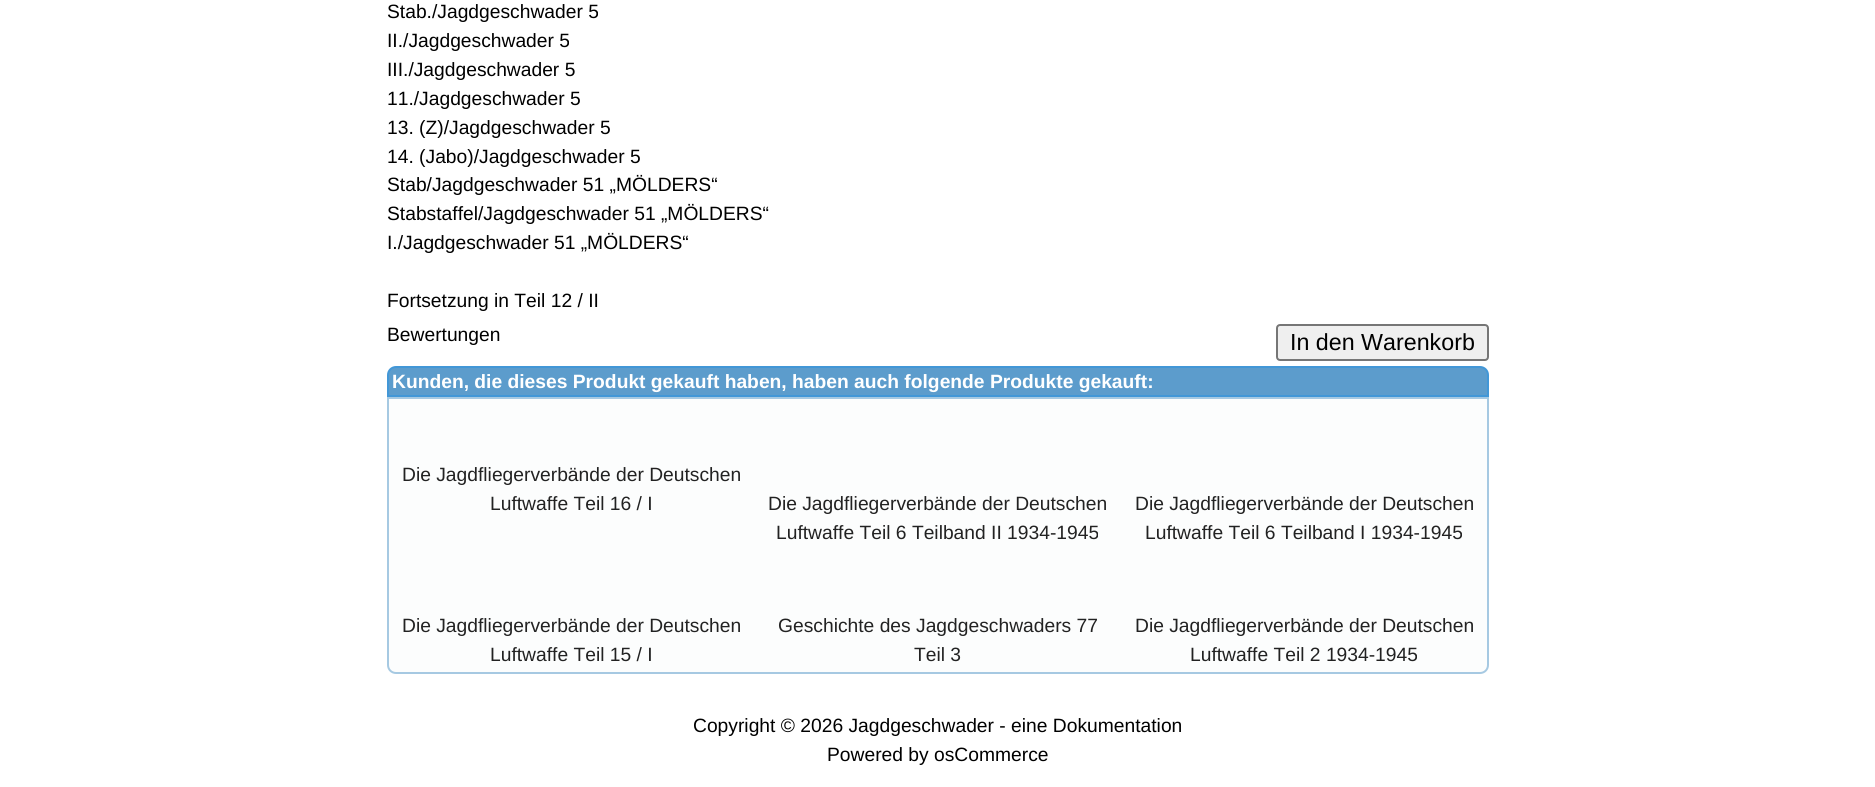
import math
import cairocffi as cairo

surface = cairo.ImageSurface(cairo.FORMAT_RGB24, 1875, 787)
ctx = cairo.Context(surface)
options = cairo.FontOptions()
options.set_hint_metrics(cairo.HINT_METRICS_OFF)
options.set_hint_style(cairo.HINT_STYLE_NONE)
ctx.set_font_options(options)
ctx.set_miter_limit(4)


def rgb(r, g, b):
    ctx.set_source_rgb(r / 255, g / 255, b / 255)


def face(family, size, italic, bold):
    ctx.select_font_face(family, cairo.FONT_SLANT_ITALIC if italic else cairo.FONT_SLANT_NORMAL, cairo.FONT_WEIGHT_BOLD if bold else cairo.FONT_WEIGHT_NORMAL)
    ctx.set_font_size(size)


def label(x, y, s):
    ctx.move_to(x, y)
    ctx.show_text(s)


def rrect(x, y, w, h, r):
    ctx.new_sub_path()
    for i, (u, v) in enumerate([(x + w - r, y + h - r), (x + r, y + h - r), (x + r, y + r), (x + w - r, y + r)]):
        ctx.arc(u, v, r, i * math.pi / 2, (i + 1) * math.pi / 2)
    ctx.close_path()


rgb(255, 255, 255)
ctx.paint()
face('Liberation Sans', 19.25, 0, 0)
rgb(0, 0, 0)
label(387, 18, 'Stab./Jagdgeschwader 5')
label(387, 47, 'II./Jagdgeschwader 5')
label(387, 76, 'III./Jagdgeschwader 5')
label(387, 105, '11./Jagdgeschwader 5')
label(387, 134, '13. (Z)/Jagdgeschwader 5')
label(387, 163, '14. (Jabo)/Jagdgeschwader 5')
label(387, 191, 'Stab/Jagdgeschwader 51 „MÖLDERS“')
label(387, 220, 'Stabstaffel/Jagdgeschwader 51 „MÖLDERS“')
label(387, 249, 'I./Jagdgeschwader 51 „MÖLDERS“')
label(387, 307, 'Fortsetzung in Teil 12 / II')
label(387, 341, 'Bewertungen')
rgb(239, 239, 239)
rrect(1277, 325, 211, 35, 3)
ctx.fill_preserve()
rgb(118, 118, 118)
ctx.stroke()
face('Liberation Sans', 23.25, 0, 0)
rgb(0, 0, 0)
label(1290, 350, 'In den Warenkorb')
rgb(92, 156, 204)
ctx.new_path()
ctx.move_to(396, 367)
ctx.line_to(1480, 367)
ctx.curve_to(1484.5, 367, 1488, 370.5, 1488, 375)
ctx.line_to(1488, 396)
ctx.line_to(388, 396)
ctx.line_to(388, 375)
ctx.curve_to(388, 370.5, 391.5, 367, 396, 367)
ctx.close_path()
ctx.fill_preserve()
rgb(66, 151, 215)
ctx.stroke()
face('Liberation Sans', 19.25, 0, 1)
rgb(255, 255, 255)
label(392, 388, 'Kunden, die dieses Produkt gekauft haben, haben auch folgende Produkte gekauft:')
rgb(252, 253, 253)
ctx.new_path()
ctx.move_to(388, 398)
ctx.line_to(1488, 398)
ctx.line_to(1488, 665)
ctx.curve_to(1488, 669.5, 1484.5, 673, 1480, 673)
ctx.line_to(396, 673)
ctx.curve_to(391.5, 673, 388, 669.5, 388, 665)
ctx.close_path()
ctx.fill_preserve()
rgb(166, 201, 226)
ctx.stroke()
face('Liberation Sans', 19.25, 0, 0)
rgb(34, 34, 34)
label(402, 481, 'Die Jagdfliegerverbände der Deutschen')
label(490, 510, 'Luftwaffe Teil 16 / I')
label(768, 510, 'Die Jagdfliegerverbände der Deutschen')
label(776, 539, 'Luftwaffe Teil 6 Teilband II 1934-1945')
label(1135, 510, 'Die Jagdfliegerverbände der Deutschen')
label(1145, 539, 'Luftwaffe Teil 6 Teilband I 1934-1945')
label(402, 632, 'Die Jagdfliegerverbände der Deutschen')
label(490, 661, 'Luftwaffe Teil 15 / I')
label(778, 632, 'Geschichte des Jagdgeschwaders 77')
label(914, 661, 'Teil 3')
label(1135, 632, 'Die Jagdfliegerverbände der Deutschen')
label(1190, 661, 'Luftwaffe Teil 2 1934-1945')
rgb(0, 0, 0)
label(693, 732, 'Copyright © 2026 Jagdgeschwader - eine Dokumentation')
label(827, 761, 'Powered by osCommerce')
surface.write_to_png('render.png')
